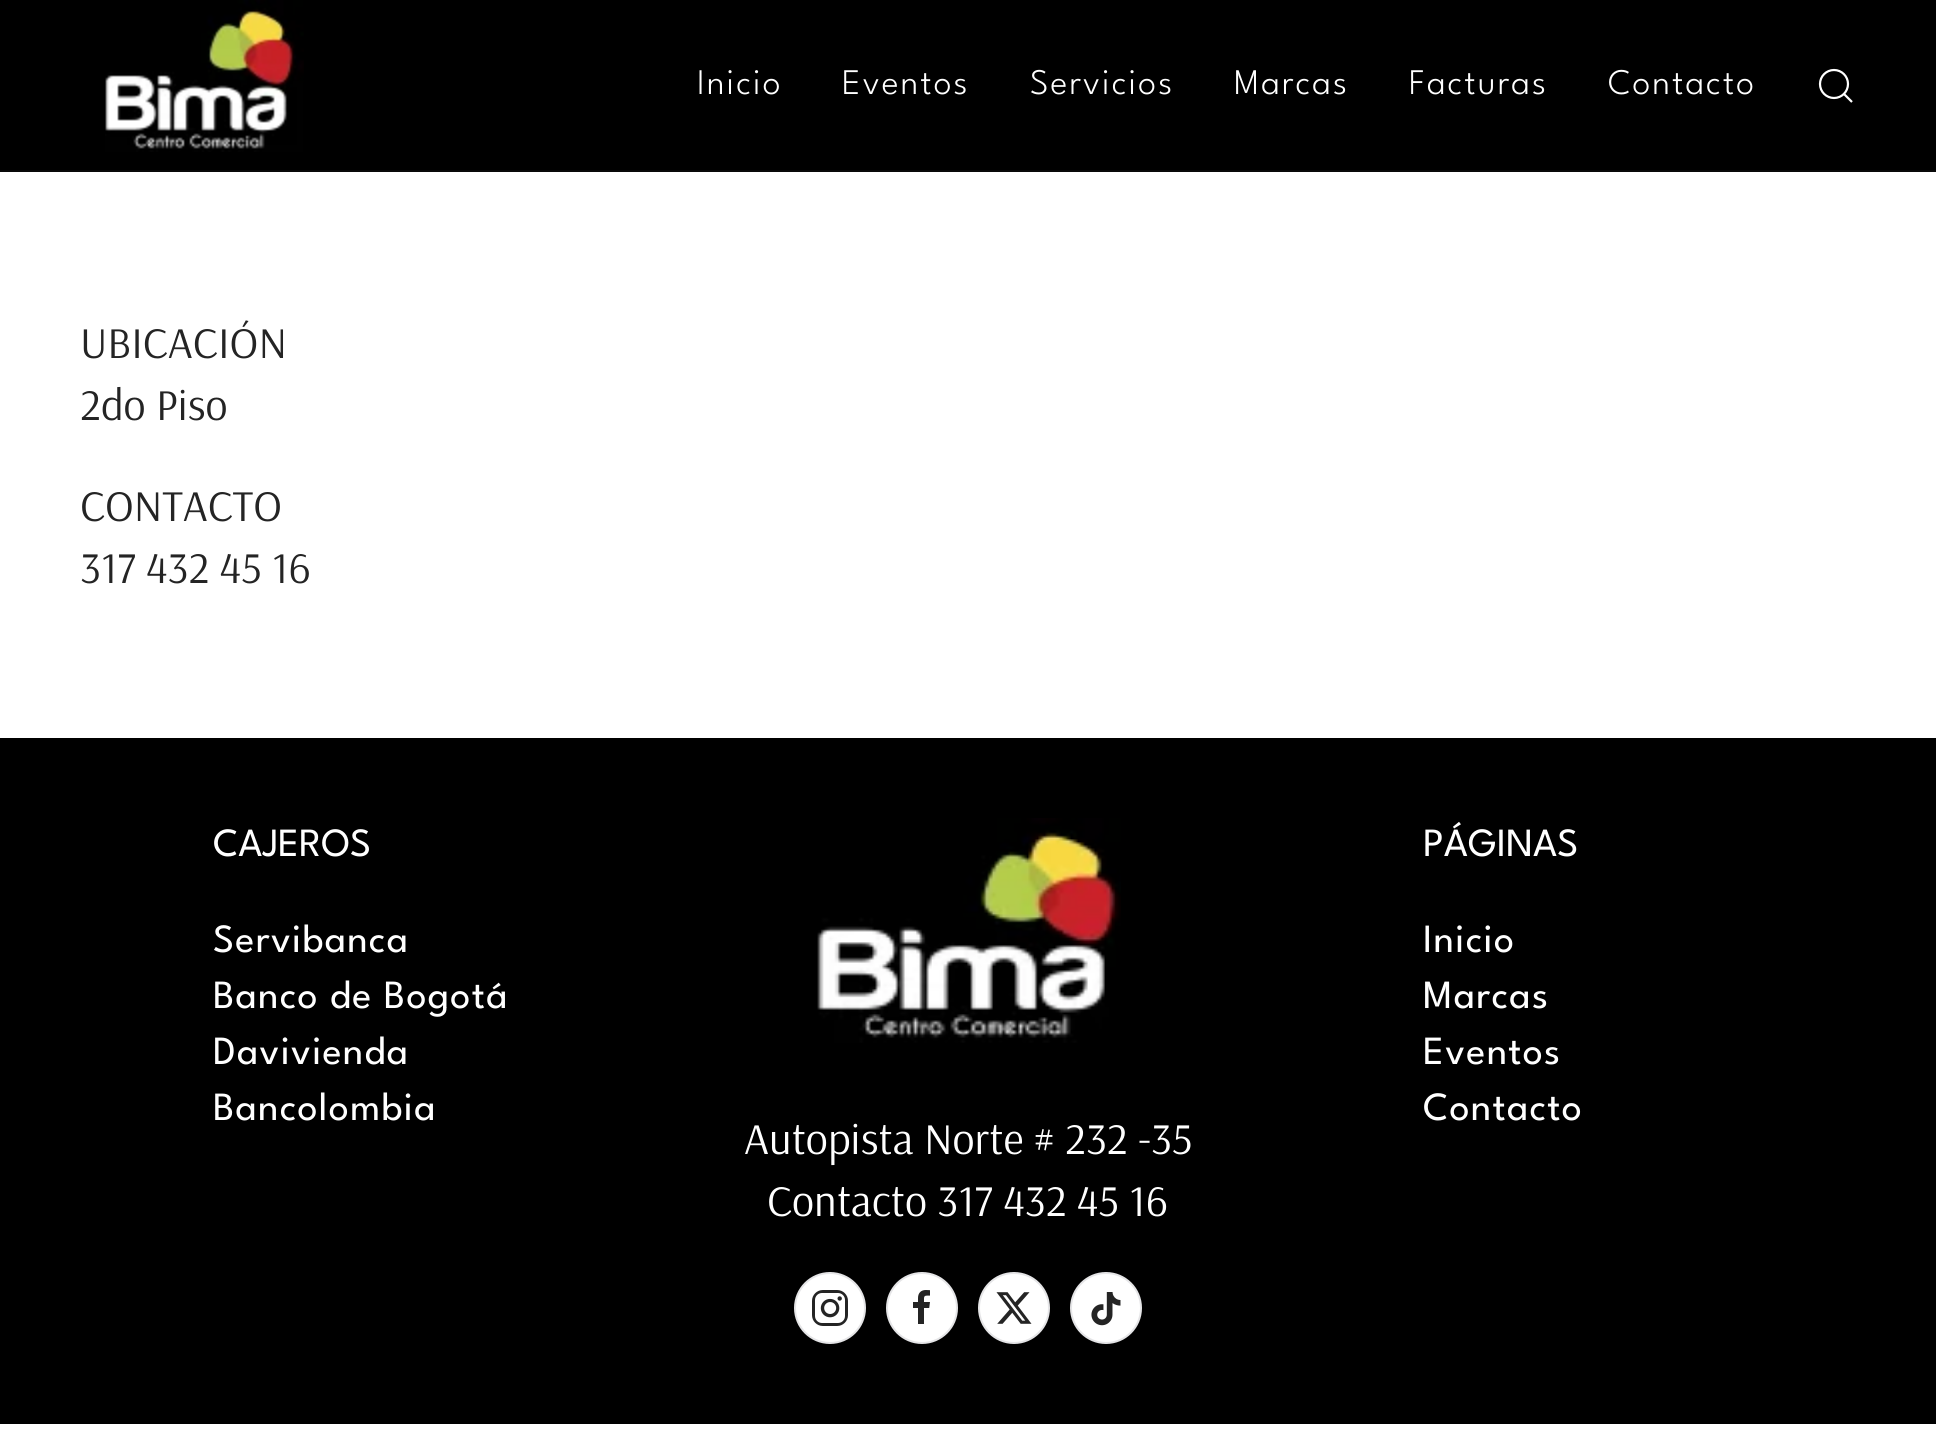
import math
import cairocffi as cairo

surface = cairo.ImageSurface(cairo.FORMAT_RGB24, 1936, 1455)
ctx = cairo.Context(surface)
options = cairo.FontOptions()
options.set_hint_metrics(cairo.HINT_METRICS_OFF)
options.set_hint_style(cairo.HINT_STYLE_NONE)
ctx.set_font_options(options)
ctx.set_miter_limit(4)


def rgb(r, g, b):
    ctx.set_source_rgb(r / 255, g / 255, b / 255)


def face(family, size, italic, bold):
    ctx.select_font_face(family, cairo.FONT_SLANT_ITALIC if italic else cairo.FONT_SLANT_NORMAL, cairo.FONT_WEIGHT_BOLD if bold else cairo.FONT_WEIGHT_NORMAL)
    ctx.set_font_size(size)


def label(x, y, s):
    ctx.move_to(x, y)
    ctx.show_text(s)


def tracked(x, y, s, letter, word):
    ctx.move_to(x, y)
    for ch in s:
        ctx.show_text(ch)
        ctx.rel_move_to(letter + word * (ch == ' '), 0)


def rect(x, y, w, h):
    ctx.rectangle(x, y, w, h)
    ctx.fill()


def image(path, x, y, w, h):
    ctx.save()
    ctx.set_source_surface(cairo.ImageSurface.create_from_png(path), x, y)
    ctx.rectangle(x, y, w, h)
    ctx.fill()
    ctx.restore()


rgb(255, 255, 255)
ctx.paint()
rgb(0, 0, 0)
rect(0, 0, 1936, 170)
rgb(9, 9, 9)
rect(0, 170, 1936, 2)
image('image0.png', 105, 0, 199, 152)
face('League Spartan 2 Thin', 36, 0, 0)
rgb(255, 255, 255)
tracked(697, 94, 'Inicio', 2, 0)
tracked(842, 94, 'Eventos', 2, 0)
tracked(1030, 94, 'Servicios', 2, 0)
tracked(1234, 94, 'Marcas', 2, 0)
tracked(1409, 94, 'Facturas', 2, 0)
tracked(1608, 94, 'Contacto', 2, 0)
ctx.new_path()
ctx.arc(1834, 84, 14, 0, 2 * math.pi)
ctx.set_line_width(2.2)
ctx.stroke()
ctx.new_path()
ctx.move_to(1844, 94)
ctx.line_to(1852, 102)
ctx.close_path()
ctx.stroke()
face('Arsenal', 44, 0, 0)
rgb(36, 36, 36)
label(80, 358, 'UBICACIÓN')
label(80, 420, '2do Piso')
label(80, 521, 'CONTACTO')
label(80, 583, '317 432 45 16')
rgb(0, 0, 0)
rect(0, 738, 1936, 686)
face('League Spartan Thin', 40, 0, 0)
rgb(255, 255, 255)
label(213, 856, 'CAJEROS')
tracked(213, 952, 'Servibanca', 1.25, 0)
tracked(213, 1008, 'Banco de Bogotá', 1.25, 0)
tracked(213, 1064, 'Davivienda', 1.25, 0)
tracked(213, 1120, 'Bancolombia', 1.25, 0)
label(1423, 856, 'PÁGINAS')
tracked(1423, 952, 'Inicio', 1.25, 0)
tracked(1423, 1008, 'Marcas', 1.25, 0)
tracked(1423, 1064, 'Eventos', 1.25, 0)
tracked(1423, 1120, 'Contacto', 1.25, 0)
image('image1.png', 817, 818, 304, 225)
face('Arsenal', 44, 0, 0)
label(744, 1154, 'Autopista Norte # 232 -35')
label(767, 1216, 'Contacto 317 432 45 16')
ctx.new_path()
ctx.arc(830, 1308, 35, 0, 2 * math.pi)
ctx.fill_preserve()
rgb(229, 229, 231)
ctx.set_line_width(2)
ctx.stroke()
image('image2.png', 812, 1290, 36, 36)
rgb(255, 255, 255)
ctx.arc(922, 1308, 35, 0, 2 * math.pi)
ctx.fill_preserve()
rgb(229, 229, 231)
ctx.stroke()
image('image3.png', 913, 1290, 17, 34)
rgb(255, 255, 255)
ctx.arc(1014, 1308, 35, 0, 2 * math.pi)
ctx.fill_preserve()
rgb(229, 229, 231)
ctx.stroke()
image('image4.png', 996, 1292, 36, 32)
rgb(255, 255, 255)
ctx.arc(1106, 1308, 35, 0, 2 * math.pi)
ctx.fill_preserve()
rgb(229, 229, 231)
ctx.stroke()
image('image5.png', 1091, 1292, 30, 34)
surface.write_to_png('render.png')
